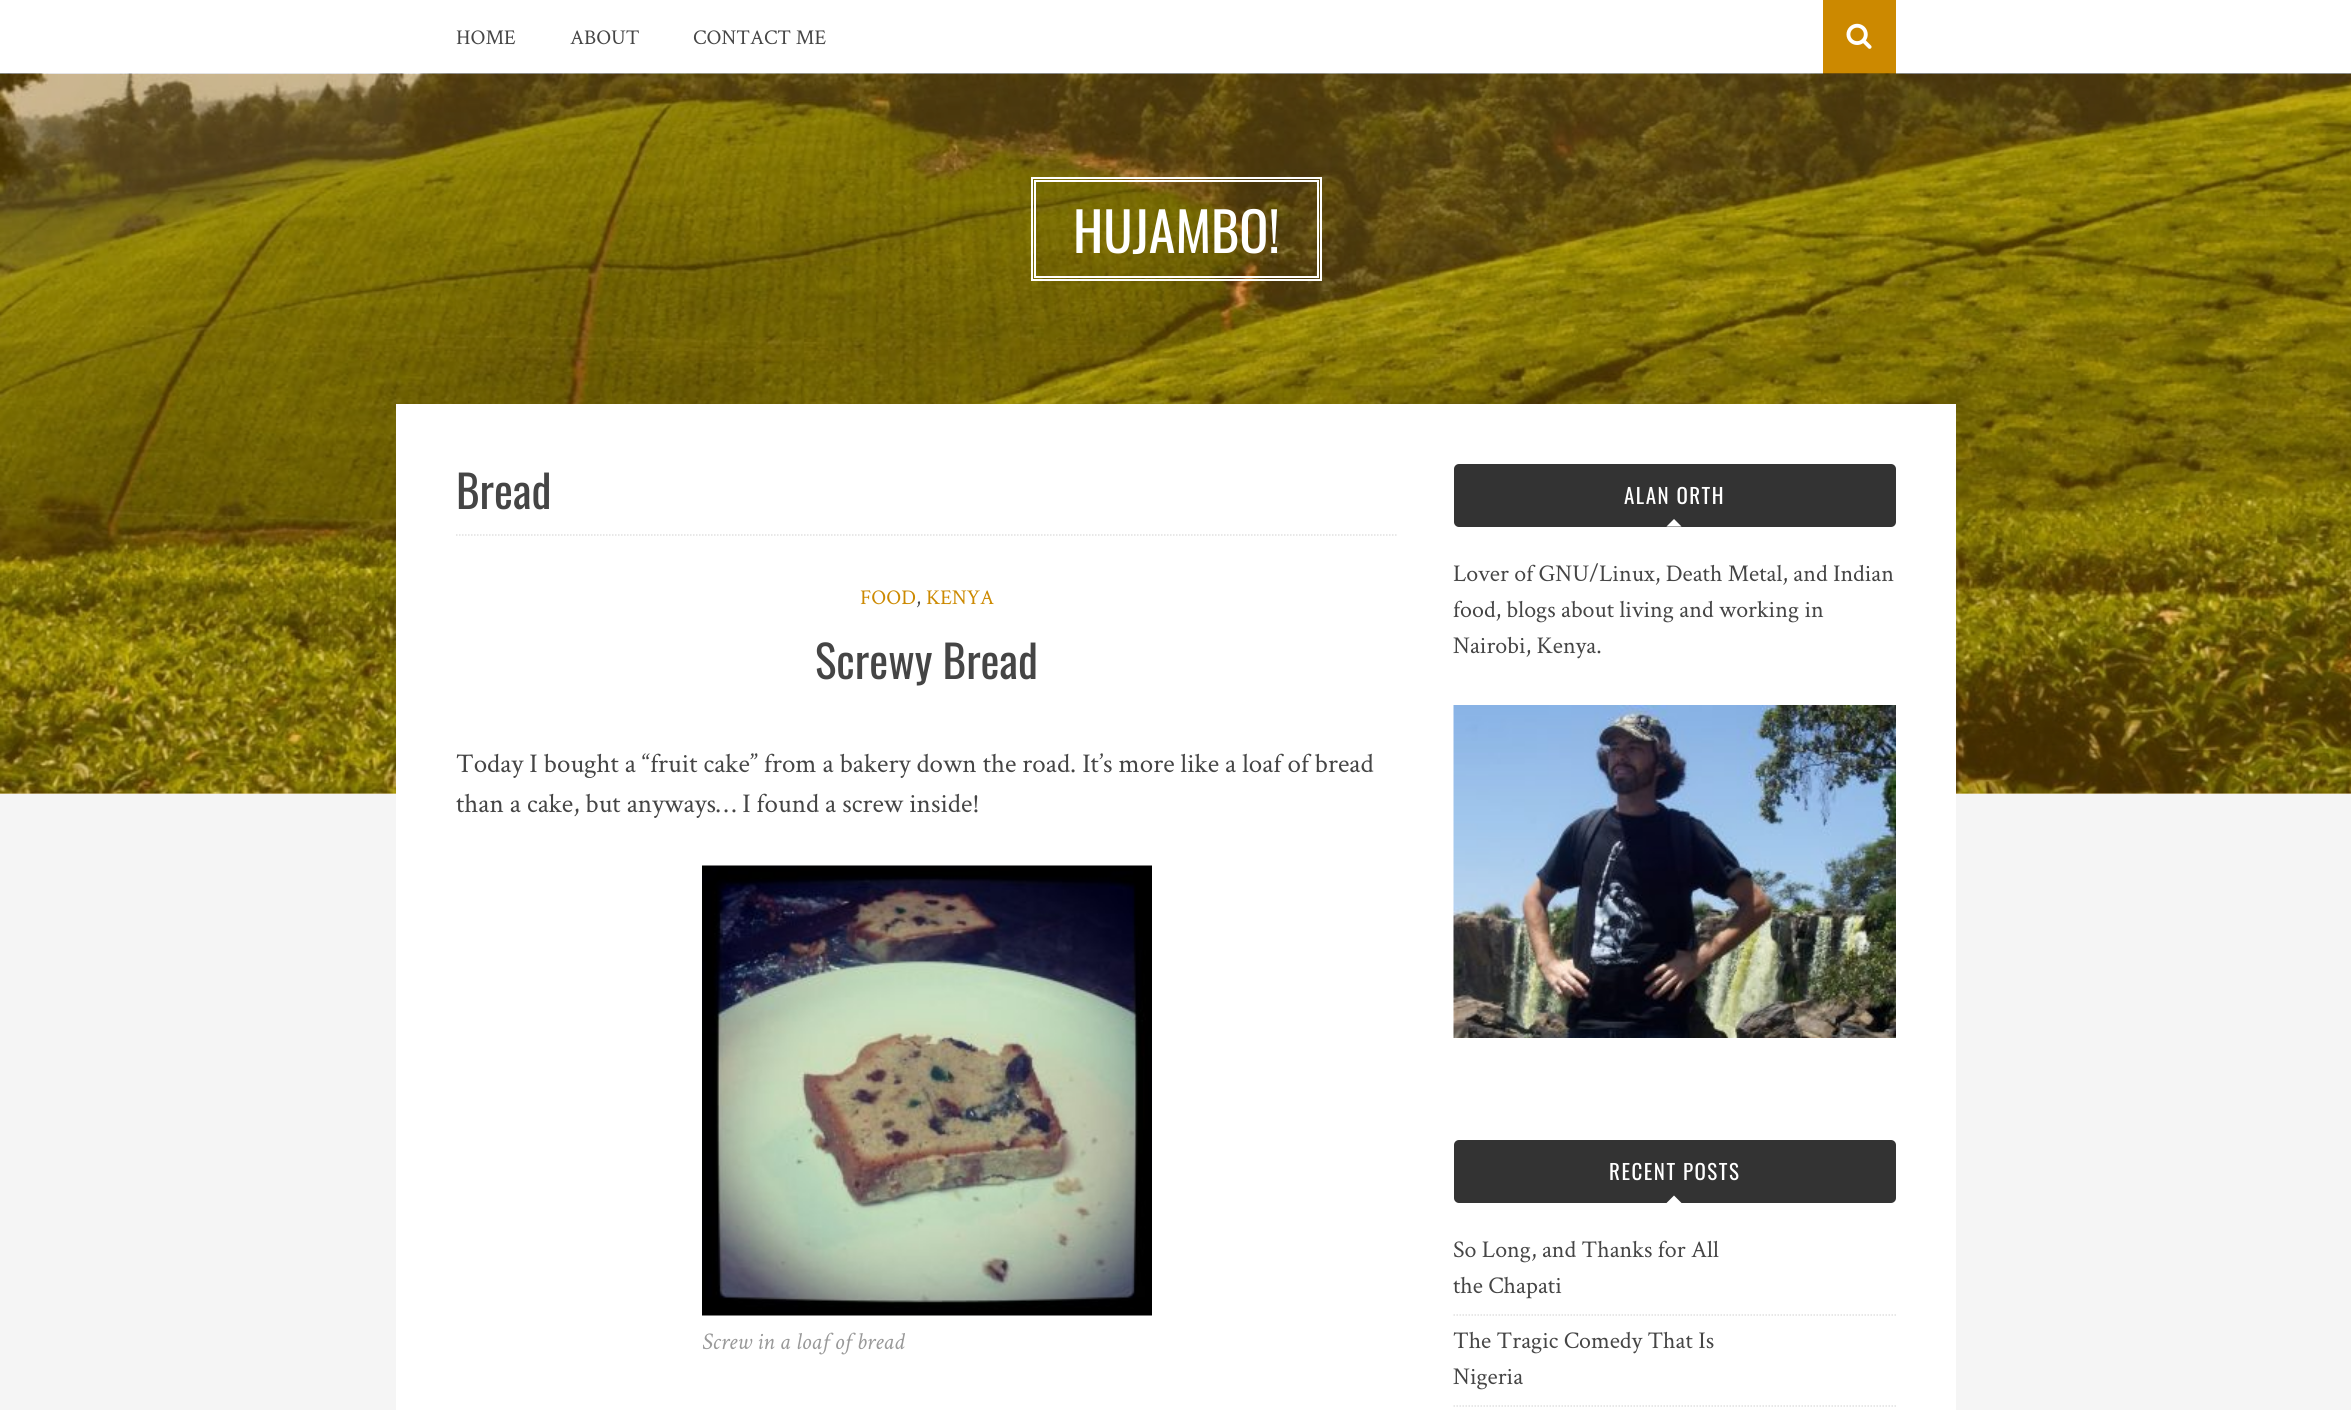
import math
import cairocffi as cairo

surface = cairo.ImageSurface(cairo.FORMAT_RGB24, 2351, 1410)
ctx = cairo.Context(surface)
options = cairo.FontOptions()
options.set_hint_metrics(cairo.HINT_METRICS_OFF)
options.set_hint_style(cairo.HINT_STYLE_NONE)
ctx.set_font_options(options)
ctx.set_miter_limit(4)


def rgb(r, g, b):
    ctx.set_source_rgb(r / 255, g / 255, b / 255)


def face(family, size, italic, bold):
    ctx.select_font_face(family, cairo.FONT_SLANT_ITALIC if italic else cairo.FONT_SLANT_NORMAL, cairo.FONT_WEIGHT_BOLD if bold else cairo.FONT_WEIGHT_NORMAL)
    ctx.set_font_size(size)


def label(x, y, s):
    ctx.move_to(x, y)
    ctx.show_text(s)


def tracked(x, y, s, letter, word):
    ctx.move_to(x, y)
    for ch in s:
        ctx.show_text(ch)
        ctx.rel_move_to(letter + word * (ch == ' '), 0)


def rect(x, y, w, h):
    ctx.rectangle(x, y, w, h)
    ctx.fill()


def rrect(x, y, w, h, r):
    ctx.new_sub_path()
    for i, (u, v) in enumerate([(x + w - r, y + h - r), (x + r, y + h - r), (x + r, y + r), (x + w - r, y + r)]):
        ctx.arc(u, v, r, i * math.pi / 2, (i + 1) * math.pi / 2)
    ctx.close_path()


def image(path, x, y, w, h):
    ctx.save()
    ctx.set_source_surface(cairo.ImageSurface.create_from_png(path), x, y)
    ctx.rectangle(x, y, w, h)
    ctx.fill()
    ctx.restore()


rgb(245, 245, 245)
ctx.paint()
rgb(255, 255, 255)
rect(0, 0, 2351, 74)
face('Crimson Text', 21, 0, 0)
rgb(69, 69, 69)
label(456, 44, 'HOME')
label(570, 44, 'ABOUT')
label(693, 44, 'CONTACT ME')
rgb(204, 137, 0)
rect(1823, 0, 73, 74)
image('image0.png', 1846, 23, 26, 26)
image('image1.png', 0, 73, 2351, 721)
ctx.set_source_rgba(0.8, 0.537, 0, 0.3)
rect(0, 74, 2351, 720)
ctx.rectangle(1032, 178, 289, 102)
rgb(255, 255, 255)
ctx.stroke()
ctx.rectangle(1035, 181, 283, 96)
ctx.stroke()
face('Oswald', 54, 0, 0)
label(1073, 253, 'HUJAMBO!')
rect(396, 404, 1560, 1006)
ctx.new_path()
ctx.move_to(456, 535)
ctx.line_to(1398, 535)
rgb(224, 224, 224)
ctx.set_line_width(1.5)
ctx.set_dash([1.5, 1.5])
ctx.stroke()
face('Oswald', 45, 0, 0)
rgb(69, 69, 69)
label(456, 509, 'Bread')
face('Crimson Text', 21, 0, 0)
rgb(204, 137, 0)
label(860, 604, 'FOOD')
rgb(69, 69, 69)
label(916, 604, ',')
rgb(204, 137, 0)
label(926, 604, 'KENYA')
face('Oswald', 45, 0, 0)
rgb(69, 69, 69)
label(815, 679, 'Screwy Bread')
face('Crimson Text', 27, 0, 0)
label(456, 772, 'Today I bought a “fruit cake” from a bakery down the road. It’s more like a loaf of bread')
label(456, 812, 'than a cake, but anyways… I found a screw inside!')
image('image2.png', 702, 865, 450, 451)
face('Crimson Text', 24, 1, 0)
rgb(153, 153, 153)
label(702, 1349, 'Screw in a loaf of bread')
rgb(51, 51, 51)
rrect(1454, 464, 442, 63, 5)
ctx.fill()
face('Oswald', 21, 0, 0)
rgb(255, 255, 255)
tracked(1624, 504, 'ALAN ORTH', 1.5, 0)
ctx.new_path()
ctx.move_to(1681.5, 526.5)
ctx.line_to(1666.5, 526.5)
ctx.line_to(1674, 519)
ctx.close_path()
ctx.fill()
face('Crimson Text', 24, 0, 0)
rgb(69, 69, 69)
label(1453, 581, 'Lover of GNU/Linux, Death Metal, and Indian')
label(1453, 617, 'food, blogs about living and working in')
label(1453, 653, 'Nairobi, Kenya.')
image('image3.png', 1453, 705, 443, 333)
rgb(51, 51, 51)
rrect(1454, 1140, 442, 63, 5)
ctx.fill()
face('Oswald', 21, 0, 0)
rgb(255, 255, 255)
tracked(1609, 1180, 'RECENT POSTS', 1.5, 0)
ctx.new_path()
ctx.move_to(1681.5, 1203)
ctx.line_to(1666.5, 1203)
ctx.line_to(1674, 1195.5)
ctx.close_path()
ctx.fill()
ctx.new_path()
ctx.move_to(1453.5, 1315)
ctx.line_to(1896, 1315)
rgb(224, 224, 224)
ctx.stroke()
face('Crimson Text', 24, 0, 0)
rgb(69, 69, 69)
label(1453, 1257, 'So Long, and Thanks for All')
label(1453, 1293, 'the Chapati')
ctx.new_path()
ctx.move_to(1453.5, 1406)
ctx.line_to(1896, 1406)
rgb(224, 224, 224)
ctx.stroke()
rgb(69, 69, 69)
label(1453, 1348, 'The Tragic Comedy That Is')
label(1453, 1384, 'Nigeria')
surface.write_to_png('render.png')
